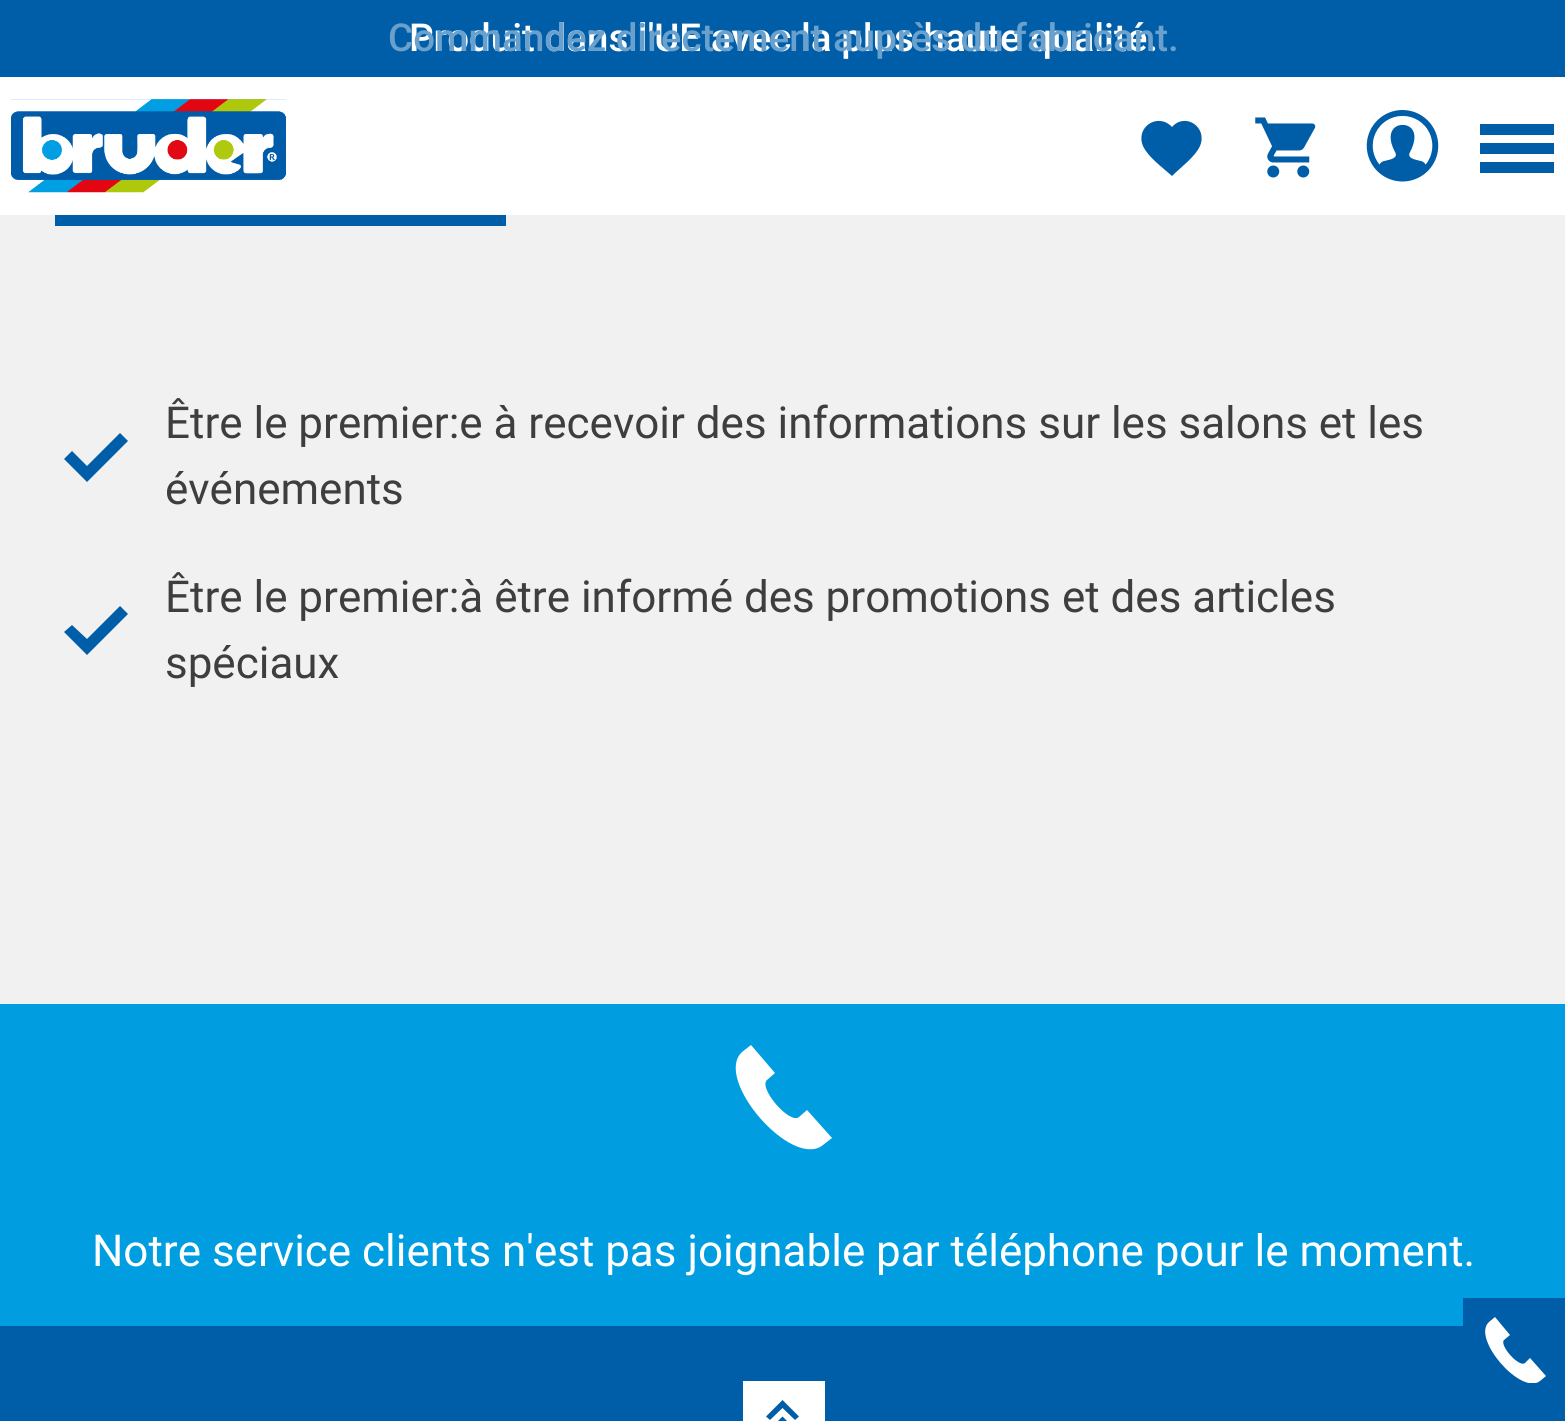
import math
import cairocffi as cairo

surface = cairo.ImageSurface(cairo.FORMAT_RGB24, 1565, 1421)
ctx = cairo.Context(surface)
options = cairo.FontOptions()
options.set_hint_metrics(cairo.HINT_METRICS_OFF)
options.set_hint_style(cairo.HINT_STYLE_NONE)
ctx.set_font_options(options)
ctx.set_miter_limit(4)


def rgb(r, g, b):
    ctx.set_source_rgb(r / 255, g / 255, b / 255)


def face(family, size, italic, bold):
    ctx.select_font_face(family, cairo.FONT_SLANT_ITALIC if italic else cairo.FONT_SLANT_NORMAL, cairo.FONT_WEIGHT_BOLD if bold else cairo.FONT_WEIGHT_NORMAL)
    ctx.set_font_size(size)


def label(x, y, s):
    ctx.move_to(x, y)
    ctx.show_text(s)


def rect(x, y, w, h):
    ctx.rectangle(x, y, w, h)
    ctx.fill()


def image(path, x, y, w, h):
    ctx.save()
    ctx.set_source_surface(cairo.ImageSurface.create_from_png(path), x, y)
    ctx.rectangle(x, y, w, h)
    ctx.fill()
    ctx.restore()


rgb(0, 93, 168)
ctx.paint()
rgb(255, 255, 255)
rect(0, 77, 1565, 138)
face('Roboto Medium', 38.5, 0, 0)
label(409, 51, 'Produit dans l\'UE avec la plus haute qualité.')
rgb(105, 160, 204)
label(388, 51, 'Commandez directement auprès du fabricant.')
image('image0.png', 11, 99, 275, 94)
rgb(0, 93, 168)
ctx.new_path()
ctx.move_to(1172, 176)
ctx.curve_to(1162, 167, 1148, 157, 1143, 146)
ctx.curve_to(1135, 127, 1158, 112, 1172, 127)
ctx.curve_to(1185, 112, 1208, 127, 1200, 146)
ctx.curve_to(1195, 157, 1181, 167, 1172, 176)
ctx.close_path()
ctx.fill()
image('image1.png', 1255, 117, 61, 61)
image('image2.png', 1366, 110, 73, 72)
rect(1480, 124, 74, 11)
rect(1480, 143, 74, 11)
rect(1480, 162, 74, 11)
rgb(241, 241, 241)
rect(0, 215, 1565, 789)
rgb(0, 93, 168)
rect(55, 215, 451, 11)
ctx.set_fill_rule(cairo.FILL_RULE_EVEN_ODD)
ctx.new_path()
ctx.move_to(72, 451)
ctx.line_to(87, 466)
ctx.line_to(120, 433)
ctx.line_to(128, 441)
ctx.line_to(87, 482)
ctx.line_to(64, 459)
ctx.close_path()
ctx.fill()
face('Roboto', 44, 0, 0)
rgb(62, 62, 62)
label(165, 438, 'Être le premier:e à recevoir des informations sur les salons et les')
label(165, 504, 'événements')
rgb(0, 93, 168)
ctx.new_path()
ctx.move_to(72, 625)
ctx.line_to(87, 639)
ctx.line_to(120, 606)
ctx.line_to(128, 614)
ctx.line_to(87, 655)
ctx.line_to(64, 632)
ctx.close_path()
ctx.fill()
rgb(62, 62, 62)
label(165, 612, 'Être le premier:à être informé des promotions et des articles')
label(165, 678, 'spéciaux')
rgb(0, 158, 224)
rect(0, 1004, 1565, 322)
rgb(255, 255, 255)
ctx.set_fill_rule(cairo.FILL_RULE_WINDING)
ctx.new_path()
ctx.move_to(832, 1138)
ctx.line_to(807, 1110)
ctx.line_to(799, 1117)
ctx.curve_to(790, 1125, 758, 1088, 767, 1080)
ctx.line_to(775, 1073)
ctx.line_to(751, 1045)
ctx.line_to(742, 1052)
ctx.curve_to(713, 1079, 792, 1170, 823, 1145)
ctx.close_path()
ctx.fill()
label(92, 1266, 'Notre service clients n\'est pas joignable par téléphone pour le moment.')
rect(743, 1381, 82, 40)
rgb(0, 93, 168)
ctx.set_fill_rule(cairo.FILL_RULE_EVEN_ODD)
ctx.new_path()
ctx.move_to(795, 1420)
ctx.line_to(782.5, 1408)
ctx.line_to(770, 1420)
ctx.line_to(766, 1416.5)
ctx.line_to(782.5, 1400)
ctx.line_to(799, 1416.5)
ctx.close_path()
ctx.move_to(795, 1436.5)
ctx.line_to(782.5, 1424)
ctx.line_to(770, 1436.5)
ctx.line_to(766, 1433)
ctx.line_to(782.5, 1416.5)
ctx.line_to(799, 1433)
ctx.close_path()
ctx.fill()
rect(1463, 1298, 102, 28)
ctx.save()
ctx.set_fill_rule(cairo.FILL_RULE_WINDING)
ctx.rectangle(1485, 1317, 61, 66)
ctx.clip()
rgb(255, 255, 255)
ctx.new_path()
ctx.move_to(1546, 1376)
ctx.line_to(1530, 1358)
ctx.line_to(1525, 1363)
ctx.curve_to(1519, 1368, 1499, 1345, 1504, 1340)
ctx.line_to(1510, 1335)
ctx.line_to(1495, 1317)
ctx.line_to(1489, 1322)
ctx.curve_to(1471, 1338, 1521, 1396, 1540, 1381)
ctx.close_path()
ctx.fill()
ctx.restore()
surface.write_to_png('render.png')
